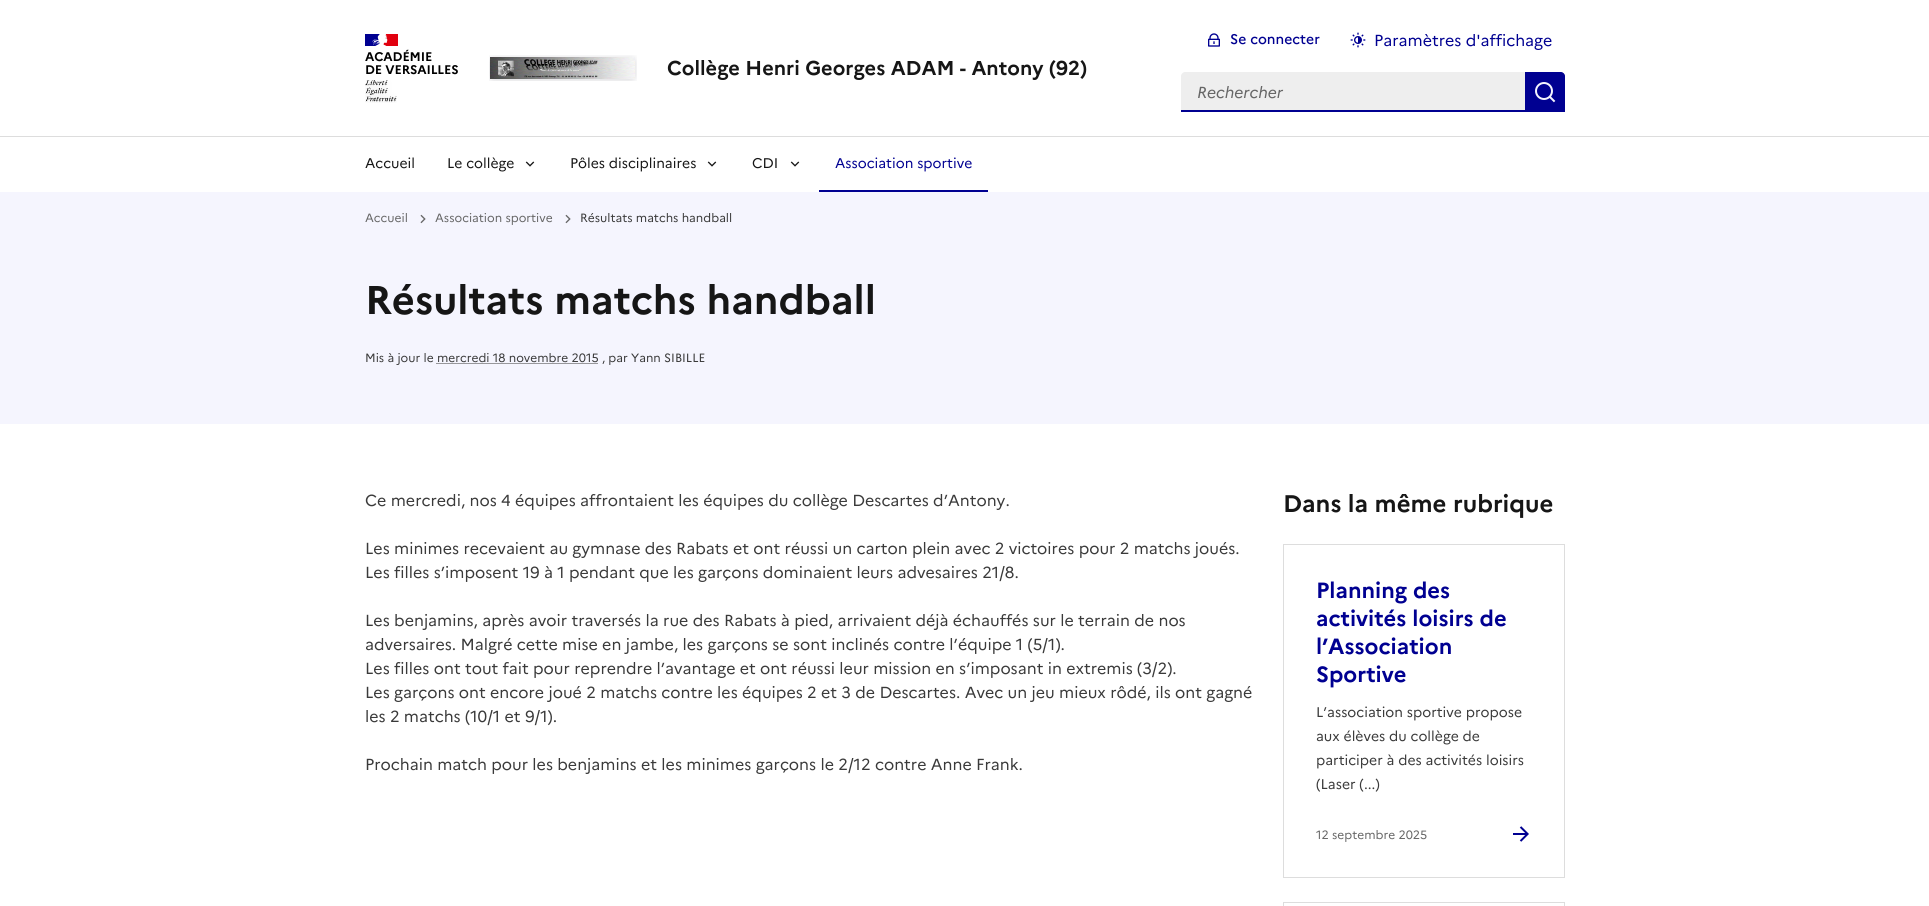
import math
import cairocffi as cairo

surface = cairo.ImageSurface(cairo.FORMAT_RGB24, 1929, 906)
ctx = cairo.Context(surface)
options = cairo.FontOptions()
options.set_hint_metrics(cairo.HINT_METRICS_OFF)
options.set_hint_style(cairo.HINT_STYLE_NONE)
ctx.set_font_options(options)
ctx.set_miter_limit(4)


def rgb(r, g, b):
    ctx.set_source_rgb(r / 255, g / 255, b / 255)


def face(family, size, italic, bold):
    ctx.select_font_face(family, cairo.FONT_SLANT_ITALIC if italic else cairo.FONT_SLANT_NORMAL, cairo.FONT_WEIGHT_BOLD if bold else cairo.FONT_WEIGHT_NORMAL)
    ctx.set_font_size(size)


def label(x, y, s):
    ctx.move_to(x, y)
    ctx.show_text(s)


def tracked(x, y, s, letter, word):
    ctx.move_to(x, y)
    for ch in s:
        ctx.show_text(ch)
        ctx.rel_move_to(letter + word * (ch == ' '), 0)


def rect(x, y, w, h):
    ctx.rectangle(x, y, w, h)
    ctx.fill()


def image(path, x, y, w, h):
    ctx.save()
    ctx.set_source_surface(cairo.ImageSurface.create_from_png(path), x, y)
    ctx.rectangle(x, y, w, h)
    ctx.fill()
    ctx.restore()


rgb(255, 255, 255)
ctx.paint()
rgb(0, 0, 145)
rect(365, 34, 16, 12)
rgb(225, 0, 15)
rect(383, 34, 15, 12)
image('image0.png', 372, 34, 16, 12)
face('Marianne', 12.5, 0, 1)
rgb(0, 0, 0)
tracked(365, 61, 'ACADÉMIE', -0.1, 0)
tracked(365, 74, 'DE VERSAILLES', -0.1, 0)
image('image1.png', 365, 80, 32, 23)
image('image2.png', 489, 55, 148, 26)
face('Marianne', 20, 0, 1)
rgb(22, 22, 22)
label(667, 75, 'Collège Henri Georges ADAM - Antony (92)')
image('image3.png', 1208, 33, 12, 14)
face('Marianne Medium', 14, 0, 0)
rgb(0, 0, 145)
label(1230, 44, 'Se connecter')
image('image4.png', 1350, 32, 16, 16)
face('Marianne', 16, 0, 0)
label(1374, 46, 'Paramètres d\'affichage')
rgb(238, 238, 238)
ctx.new_path()
ctx.move_to(1185, 72)
ctx.line_to(1525, 72)
ctx.line_to(1525, 112)
ctx.line_to(1181, 112)
ctx.line_to(1181, 76)
ctx.curve_to(1181, 74, 1183, 72, 1185, 72)
ctx.close_path()
ctx.fill()
rgb(0, 0, 145)
rect(1181, 110, 344, 2)
face('Marianne', 16, 1, 0)
rgb(102, 102, 102)
label(1197, 98, 'Rechercher')
rgb(0, 0, 145)
ctx.new_path()
ctx.move_to(1525, 72)
ctx.line_to(1561, 72)
ctx.curve_to(1563, 72, 1565, 74, 1565, 76)
ctx.line_to(1565, 112)
ctx.line_to(1525, 112)
ctx.close_path()
ctx.fill()
image('image5.png', 1535, 82, 21, 21)
rgb(221, 221, 221)
rect(0, 136, 1929, 1)
face('Marianne', 14, 0, 0)
rgb(22, 22, 22)
label(365, 168, 'Accueil')
label(447, 168, 'Le collège')
image('image6.png', 525, 161, 10, 6)
label(570, 168, 'Pôles disciplinaires')
image('image6.png', 707, 161, 10, 6)
label(752, 168, 'CDI')
image('image6.png', 790, 161, 10, 6)
rgb(0, 0, 145)
label(835, 168, 'Association sportive')
rect(819, 190, 169, 2)
rgb(245, 245, 254)
rect(0, 192, 1929, 232)
face('Marianne', 12, 0, 0)
rgb(102, 102, 102)
label(365, 222, 'Accueil')
image('image7.png', 420, 214, 6, 10)
label(435, 222, 'Association sportive')
image('image7.png', 565, 214, 6, 10)
rgb(58, 58, 58)
label(580, 222, 'Résultats matchs handball')
face('Marianne', 40, 0, 1)
rgb(22, 22, 22)
label(365, 314, 'Résultats matchs handball')
face('Marianne', 12, 0, 0)
rgb(58, 58, 58)
label(365, 362, 'Mis à jour le mercredi 18 novembre 2015 , par Yann SIBILLE')
ctx.new_path()
ctx.move_to(436.5, 363.5)
ctx.line_to(598, 363.5)
ctx.set_line_width(1)
ctx.set_dash([1, 1])
ctx.stroke()
face('Marianne', 16, 0, 0)
label(365, 506, 'Ce mercredi, nos 4 équipes affrontaient les équipes du collège Descartes d’Antony.')
label(365, 554, 'Les minimes recevaient au gymnase des Rabats et ont réussi un carton plein avec 2 victoires pour 2 matchs joués.')
label(365, 578, 'Les filles s’imposent 19 à 1 pendant que les garçons dominaient leurs advesaires 21/8.')
label(365, 626, 'Les benjamins, après avoir traversés la rue des Rabats à pied, arrivaient déjà échauffés sur le terrain de nos')
label(365, 650, 'adversaires. Malgré cette mise en jambe, les garçons se sont inclinés contre l’équipe 1 (5/1).')
label(365, 674, 'Les filles ont tout fait pour reprendre l’avantage et ont réussi leur mission en s’imposant in extremis (3/2).')
label(365, 698, 'Les garçons ont encore joué 2 matchs contre les équipes 2 et 3 de Descartes. Avec un jeu mieux rôdé, ils ont gagné')
label(365, 722, 'les 2 matchs (10/1 et 9/1).')
label(365, 770, 'Prochain match pour les benjamins et les minimes garçons le 2/12 contre Anne Frank.')
face('Marianne', 24, 0, 1)
rgb(22, 22, 22)
label(1283, 512, 'Dans la même rubrique')
rgb(221, 221, 221)
rect(1283, 544, 282, 1)
rect(1564, 544, 1, 334)
rect(1283, 544, 1, 334)
rect(1283, 877, 282, 1)
face('Marianne', 22, 0, 1)
rgb(0, 0, 145)
label(1316, 598, 'Planning des')
label(1316, 626, 'activités loisirs de')
label(1316, 654, 'l’Association')
label(1316, 682, 'Sportive')
image('image8.png', 1513, 826, 16, 16)
face('Marianne', 14, 0, 0)
rgb(58, 58, 58)
label(1316, 717, 'L’association sportive propose')
label(1316, 741, 'aux élèves du collège de')
label(1316, 765, 'participer à des activités loisirs')
label(1316, 789, '(Laser (...)')
face('Marianne', 12, 0, 0)
rgb(102, 102, 102)
label(1316, 839, '12 septembre 2025')
rgb(221, 221, 221)
rect(1283, 902, 282, 1)
rect(1564, 902, 1, 4)
rect(1283, 902, 1, 4)
surface.write_to_png('render.png')
